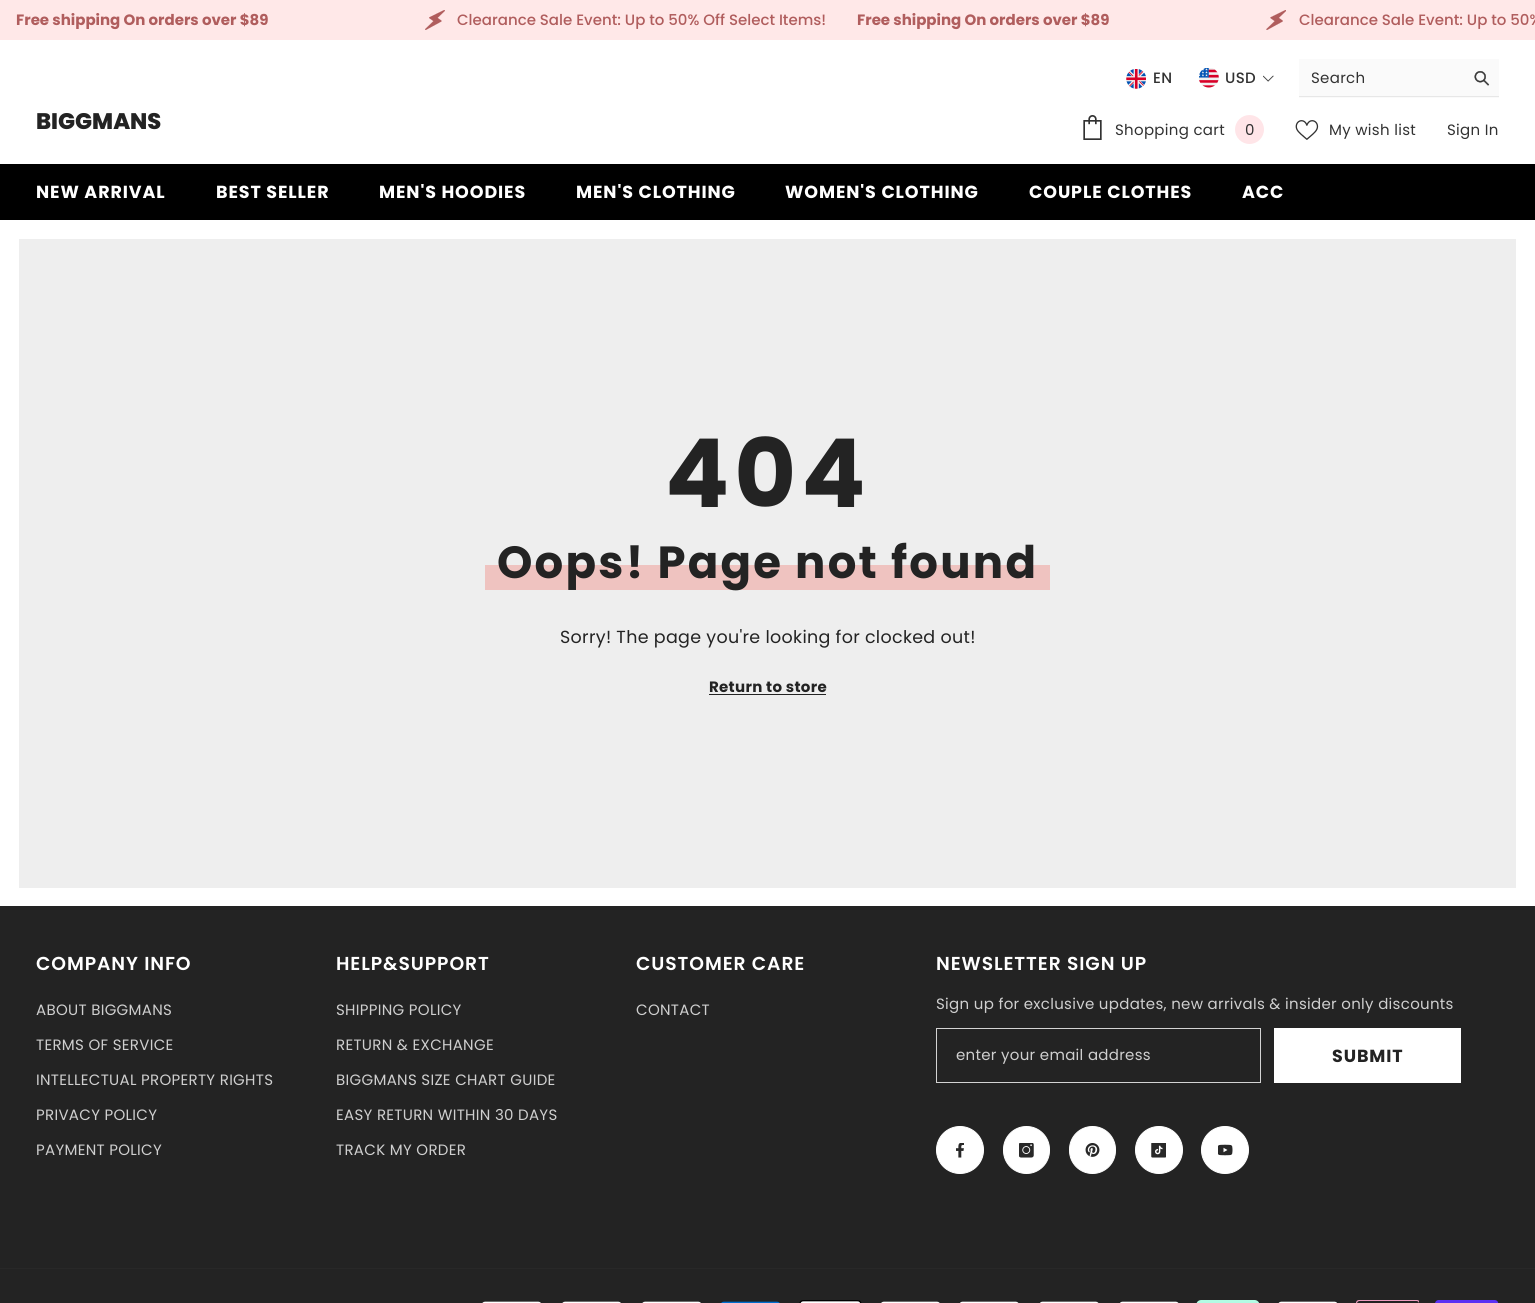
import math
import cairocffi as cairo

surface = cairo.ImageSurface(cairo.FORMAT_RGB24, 1535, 1303)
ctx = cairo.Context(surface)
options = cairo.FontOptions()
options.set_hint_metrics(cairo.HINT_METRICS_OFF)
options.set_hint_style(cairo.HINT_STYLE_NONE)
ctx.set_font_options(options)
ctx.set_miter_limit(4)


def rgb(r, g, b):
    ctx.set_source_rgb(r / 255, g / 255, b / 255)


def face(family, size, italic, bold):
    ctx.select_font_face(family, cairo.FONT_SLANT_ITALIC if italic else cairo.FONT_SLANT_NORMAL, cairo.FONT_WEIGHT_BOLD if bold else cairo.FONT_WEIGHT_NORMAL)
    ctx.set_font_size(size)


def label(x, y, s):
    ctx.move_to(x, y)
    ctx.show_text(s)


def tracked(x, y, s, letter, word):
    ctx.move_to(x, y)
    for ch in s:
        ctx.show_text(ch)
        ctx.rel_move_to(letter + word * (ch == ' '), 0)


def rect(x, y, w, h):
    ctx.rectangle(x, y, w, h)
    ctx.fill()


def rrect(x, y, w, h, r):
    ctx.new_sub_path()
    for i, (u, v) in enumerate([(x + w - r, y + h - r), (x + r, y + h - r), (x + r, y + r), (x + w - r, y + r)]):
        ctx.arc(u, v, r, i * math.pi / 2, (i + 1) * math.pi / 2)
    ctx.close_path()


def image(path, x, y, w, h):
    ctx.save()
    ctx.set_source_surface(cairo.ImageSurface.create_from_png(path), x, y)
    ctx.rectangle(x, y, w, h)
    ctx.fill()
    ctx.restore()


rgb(255, 255, 255)
ctx.paint()
rgb(255, 232, 232)
rect(0, 0, 1535, 40)
face('Poppins', 15, 0, 1)
rgb(176, 93, 93)
label(16, 25, 'Free shipping On orders over $89')
image('image0.png', 425, 10, 20, 20)
face('Poppins Medium', 15, 0, 0)
label(457, 25, 'Clearance Sale Event: Up to 50% Off Select Items!')
face('Poppins', 15, 0, 1)
label(857, 25, 'Free shipping On orders over $89')
image('image1.png', 1266, 10, 20, 20)
face('Poppins Medium', 15, 0, 0)
label(1299, 25, 'Clearance Sale Event: Up to 50%')
image('image2.png', 1126, 69, 20, 20)
rgb(50, 50, 50)
tracked(1153, 83, 'EN', 0.3, 0)
image('image3.png', 1199, 68, 20, 20)
tracked(1225, 83, 'USD', 0.3, 0)
image('image4.png', 1263, 75, 11, 7)
rgb(250, 250, 250)
rect(1299, 59, 200, 39)
rgb(231, 231, 231)
rect(1299, 96, 200, 1)
face('Poppins', 15, 0, 0)
rgb(50, 50, 50)
tracked(1311, 83, 'Search', 0.3, 0)
image('image5.png', 1474, 71, 16, 15)
face('Poppins ExtraBold', 22.5, 0, 0)
rgb(35, 35, 35)
label(36, 129, 'BIGGMANS')
image('image6.png', 1083, 115, 19, 25)
face('Poppins', 15, 0, 0)
rgb(50, 50, 50)
tracked(1115, 135, 'Shopping cart', 0.3, 0)
rgb(255, 229, 232)
ctx.new_path()
ctx.arc(1249.5, 129.5, 14.5, 0, 2 * math.pi)
ctx.fill()
rgb(50, 50, 50)
label(1245, 135, '0')
image('image7.png', 1295, 120, 24, 20)
tracked(1329, 135, 'My wish list', 0.3, 0)
tracked(1447, 135, 'Sign In', 0.3, 0)
rgb(0, 0, 0)
rect(0, 164, 1535, 56)
face('Poppins', 17.5, 0, 1)
rgb(255, 255, 255)
tracked(36, 198, 'NEW ARRIVAL', 0.9, 0)
tracked(216, 198, 'BEST SELLER', 0.9, 0)
tracked(379, 198, 'MEN\'S HOODIES', 0.9, 0)
tracked(576, 198, 'MEN\'S CLOTHING', 0.9, 0)
tracked(785, 198, 'WOMEN\'S CLOTHING', 0.9, 0)
tracked(1029, 198, 'COUPLE CLOTHES', 0.9, 0)
tracked(1242, 198, 'ACC', 0.9, 0)
rgb(238, 238, 238)
rect(19, 239, 1497, 649)
face('Poppins', 95, 0, 1)
rgb(35, 35, 35)
tracked(665, 507, '404', 5, 0)
rgb(239, 195, 192)
rect(485, 565, 565, 25)
face('Poppins', 45, 0, 1)
rgb(35, 35, 35)
tracked(497, 578, 'Oops! Page not found', 2.25, 0)
face('Poppins', 17.5, 0, 0)
tracked(560, 643, 'Sorry! The page you\'re looking for clocked out!', 0.3, 0)
face('Poppins', 15, 0, 1)
tracked(709, 692, 'Return to store', 0.3, 0)
rect(709, 694, 117, 1)
rect(0, 906, 1535, 362)
face('Poppins SemiBold', 18.75, 0, 0)
rgb(255, 255, 255)
tracked(36, 970, 'COMPANY INFO', 0.9, 0)
face('Poppins', 15, 0, 0)
rgb(207, 207, 207)
tracked(36, 1015, 'ABOUT BIGGMANS', 0.3, 0)
tracked(36, 1050, 'TERMS OF SERVICE', 0.3, 0)
tracked(36, 1085, 'INTELLECTUAL PROPERTY RIGHTS', 0.3, 0)
tracked(36, 1120, 'PRIVACY POLICY', 0.3, 0)
tracked(36, 1155, 'PAYMENT POLICY', 0.3, 0)
face('Poppins SemiBold', 18.75, 0, 0)
rgb(255, 255, 255)
tracked(336, 970, 'HELP&SUPPORT', 0.9, 0)
face('Poppins', 15, 0, 0)
rgb(207, 207, 207)
tracked(336, 1015, 'SHIPPING POLICY', 0.3, 0)
tracked(336, 1050, 'RETURN & EXCHANGE', 0.3, 0)
tracked(336, 1085, 'BIGGMANS SIZE CHART GUIDE', 0.3, 0)
tracked(336, 1120, 'EASY RETURN WITHIN 30 DAYS', 0.3, 0)
tracked(336, 1155, 'TRACK MY ORDER', 0.3, 0)
face('Poppins SemiBold', 18.75, 0, 0)
rgb(255, 255, 255)
tracked(636, 970, 'CUSTOMER CARE', 0.9, 0)
face('Poppins', 15, 0, 0)
rgb(207, 207, 207)
tracked(636, 1015, 'CONTACT', 0.3, 0)
face('Poppins SemiBold', 18.75, 0, 0)
rgb(255, 255, 255)
tracked(936, 970, 'NEWSLETTER SIGN UP', 0.9, 0)
face('Poppins', 15, 0, 0)
rgb(207, 207, 207)
tracked(936, 1009, 'Sign up for exclusive updates, new arrivals & insider only discounts', 0.3, 0)
ctx.rectangle(936.5, 1028.5, 324, 54)
rgb(211, 211, 211)
ctx.set_line_width(1)
ctx.stroke()
rgb(207, 207, 207)
tracked(956, 1060, 'enter your email address', 0.3, 0)
rgb(255, 255, 255)
rect(1274, 1028, 187, 55)
face('Poppins', 17.5, 0, 1)
rgb(35, 35, 35)
tracked(1332, 1062, 'SUBMIT', 0.9, 0)
rgb(255, 255, 255)
ctx.new_path()
ctx.arc(960, 1150, 23.5, 0, 2 * math.pi)
ctx.fill_preserve()
ctx.stroke()
image('image8.png', 956, 1143, 8, 15)
rrect(1003.5, 1126.5, 46, 47, 23)
ctx.fill_preserve()
ctx.stroke()
image('image9.png', 1019, 1143, 15, 15)
rrect(1069.5, 1126.5, 46, 47, 23)
ctx.fill_preserve()
ctx.stroke()
image('image10.png', 1085, 1143, 15, 14)
ctx.arc(1159, 1150, 23.5, 0, 2 * math.pi)
ctx.fill_preserve()
ctx.stroke()
image('image11.png', 1151, 1143, 15, 15)
ctx.arc(1225, 1150, 23.5, 0, 2 * math.pi)
ctx.fill_preserve()
ctx.stroke()
image('image12.png', 1218, 1144, 15, 12)
rgb(35, 35, 35)
rect(0, 1269, 1535, 34)
rgb(40, 40, 40)
rect(0, 1268, 1535, 1)
image('image13.png', 482, 1301, 59, 2)
image('image13.png', 562, 1301, 59, 2)
image('image13.png', 642, 1301, 59, 2)
image('image14.png', 721, 1301, 59, 2)
image('image15.png', 799, 1300, 63, 3)
image('image16.png', 881, 1301, 59, 2)
image('image17.png', 960, 1301, 59, 2)
image('image18.png', 1040, 1301, 59, 2)
image('image17.png', 1120, 1301, 59, 2)
image('image19.png', 1196, 1300, 63, 3)
image('image20.png', 1278, 1301, 59, 2)
image('image21.png', 1356, 1300, 63, 3)
image('image22.png', 1435, 1300, 64, 3)
surface.write_to_png('render.png')
